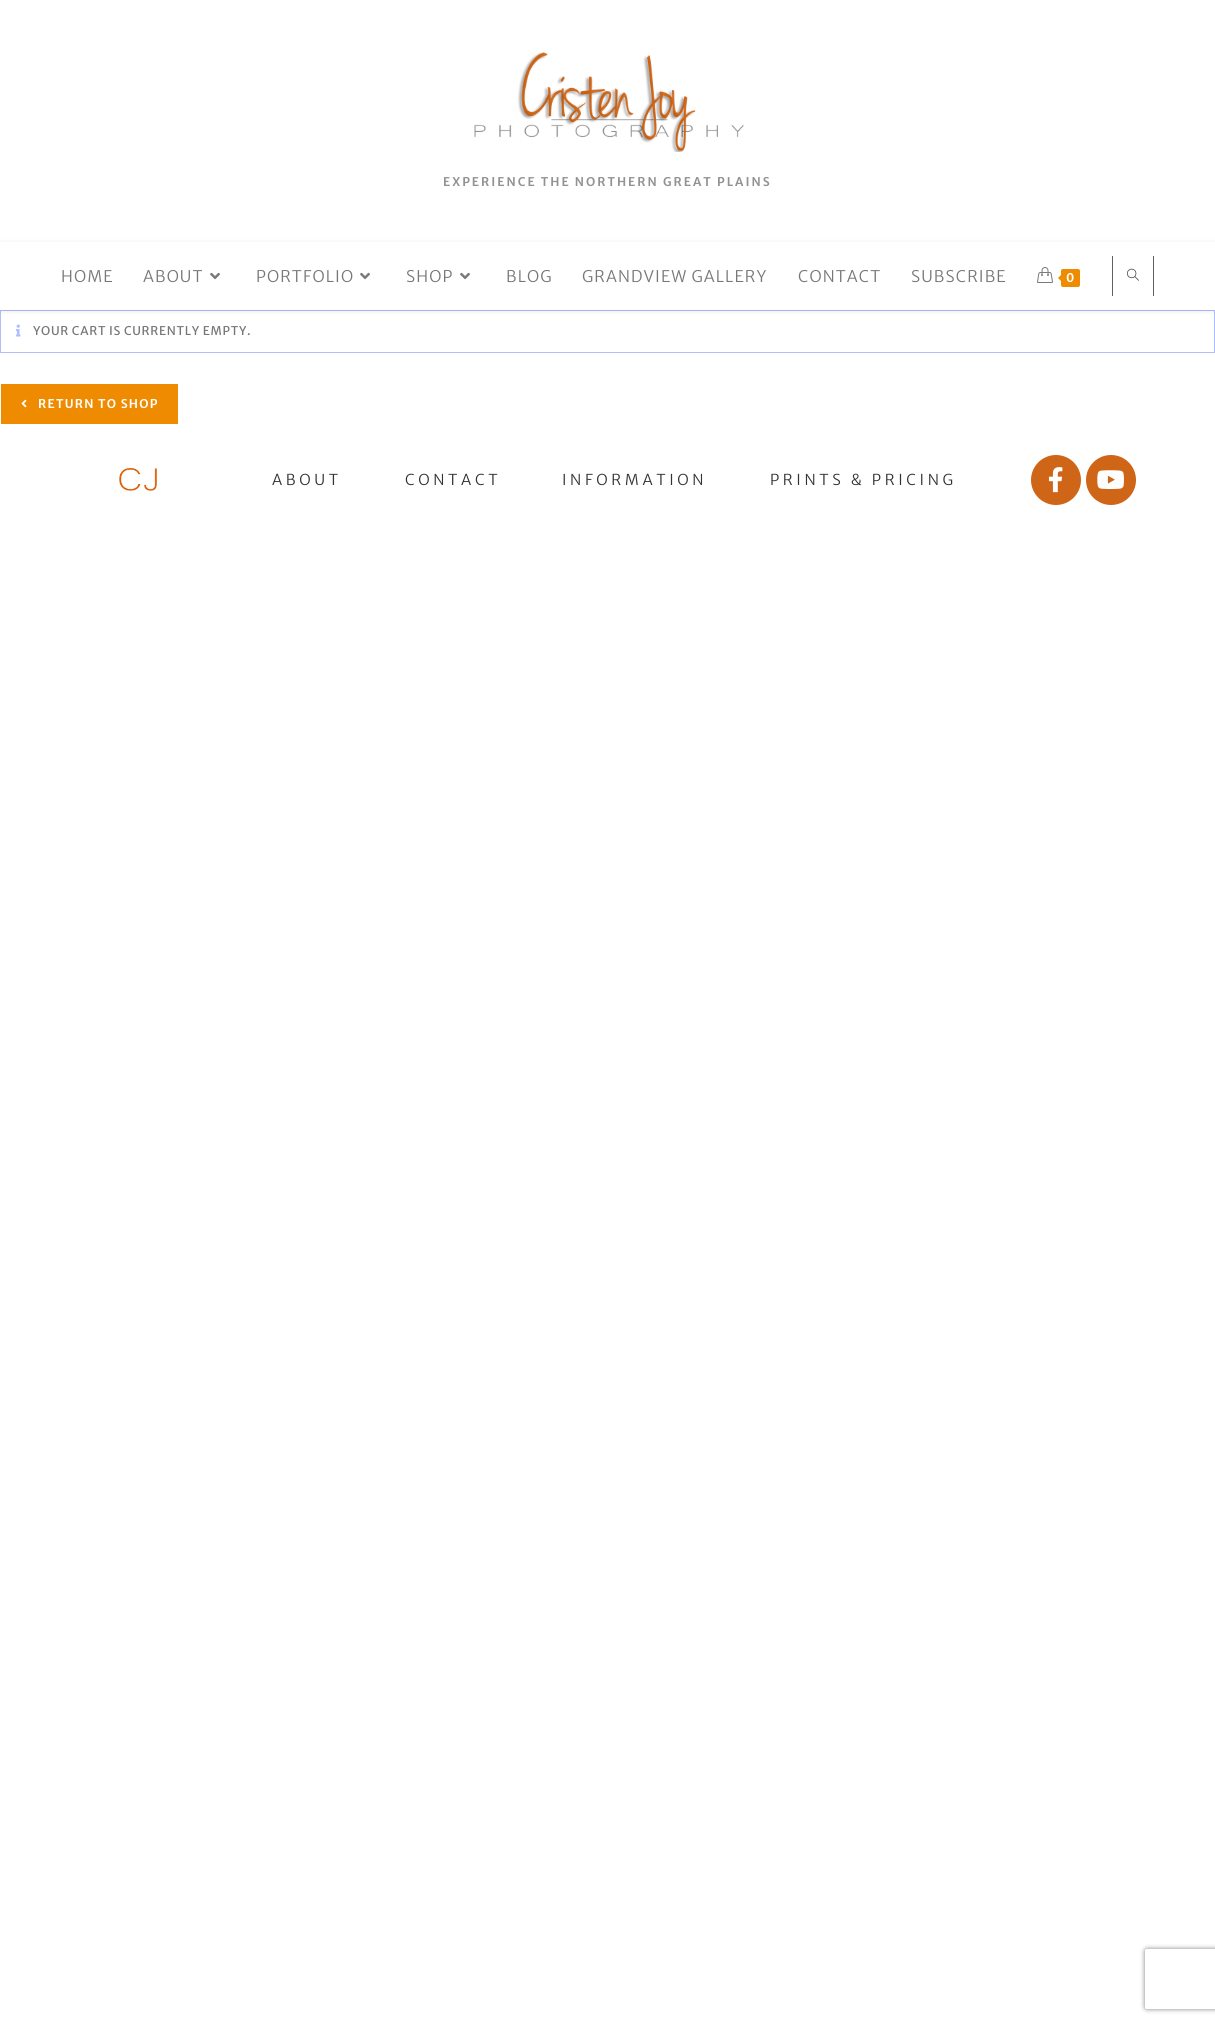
import math
import cairocffi as cairo

surface = cairo.ImageSurface(cairo.FORMAT_RGB24, 1215, 2023)
ctx = cairo.Context(surface)
options = cairo.FontOptions()
options.set_hint_metrics(cairo.HINT_METRICS_OFF)
options.set_hint_style(cairo.HINT_STYLE_NONE)
ctx.set_font_options(options)
ctx.set_miter_limit(4)


def rgb(r, g, b):
    ctx.set_source_rgb(r / 255, g / 255, b / 255)


def face(family, size, italic, bold):
    ctx.select_font_face(family, cairo.FONT_SLANT_ITALIC if italic else cairo.FONT_SLANT_NORMAL, cairo.FONT_WEIGHT_BOLD if bold else cairo.FONT_WEIGHT_NORMAL)
    ctx.set_font_size(size)


def tracked(x, y, s, letter, word):
    ctx.move_to(x, y)
    for ch in s:
        ctx.show_text(ch)
        ctx.rel_move_to(letter + word * (ch == ' '), 0)


def rect(x, y, w, h):
    ctx.rectangle(x, y, w, h)
    ctx.fill()


def rrect(x, y, w, h, r):
    ctx.new_sub_path()
    for i, (u, v) in enumerate([(x + w - r, y + h - r), (x + r, y + h - r), (x + r, y + r), (x + w - r, y + r)]):
        ctx.arc(u, v, r, i * math.pi / 2, (i + 1) * math.pi / 2)
    ctx.close_path()


def soft_shadow(x, y, w, h, r, blur, alpha):
    ctx.push_group_with_content(cairo.CONTENT_ALPHA)
    ctx.set_operator(cairo.OPERATOR_SOURCE)
    for i in range(15, -16, -2):
        e = blur * i / 6
        if min(w, h) + 2 * e > 0:
            ctx.set_source_rgba(0, 0, 0, alpha * math.erfc((i - 1) / 8.5) / 2)
            rrect(x - e, y - e, w + 2 * e, h + 2 * e, max(0, min(r + e + blur * .6, min(w, h) / 2 + e)))
            ctx.fill()
    ctx.mask(ctx.pop_group())


def image(path, x, y, w, h):
    ctx.save()
    ctx.set_source_surface(cairo.ImageSurface.create_from_png(path), x, y)
    ctx.rectangle(x, y, w, h)
    ctx.fill()
    ctx.restore()


rgb(255, 255, 255)
ctx.paint()
image('image0.png', 474, 52, 270, 100)
face('Merriweather Sans SemiBold', 12, 0, 0)
rgb(146, 146, 146)
tracked(443, 186, 'EXPERIENCE THE NORTHERN GREAT PLAINS', 2, 0)
ctx.rectangle(0.5, 310.5, 1214, 42)
rgb(177, 190, 253)
ctx.set_line_width(1)
ctx.stroke()
ctx.save()
ctx.set_fill_rule(cairo.FILL_RULE_EVEN_ODD)
ctx.new_path()
ctx.move_to(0, 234)
ctx.line_to(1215, 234)
ctx.line_to(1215, 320)
ctx.line_to(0, 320)
ctx.close_path()
ctx.move_to(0, 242)
ctx.line_to(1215, 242)
ctx.line_to(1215, 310)
ctx.line_to(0, 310)
ctx.close_path()
ctx.clip()
rgb(0, 0, 0)
soft_shadow(0, 243, 1215, 68, 0, 2.5, 0.1)
ctx.restore()
face('Merriweather Sans Light', 16, 0, 0)
rgb(119, 119, 119)
tracked(61, 282, 'HOME', 1.1, 0)
tracked(143, 282, 'ABOUT', 1.1, 0)
image('image1.png', 210, 272, 10, 8)
tracked(256, 282, 'PORTFOLIO', 1.1, 0)
image('image1.png', 360, 272, 10, 8)
tracked(406, 282, 'SHOP', 1.1, 0)
image('image1.png', 460, 272, 10, 8)
tracked(506, 282, 'BLOG', 1.1, 0)
tracked(582, 282, 'GRANDVIEW GALLERY', 1.1, 0)
tracked(798, 282, 'CONTACT', 1.1, 0)
tracked(911, 282, 'SUBSCRIBE', 1.1, 0)
image('image2.png', 1037, 267, 16, 16)
rgb(239, 139, 0)
rrect(1061, 269, 19, 18, 2)
ctx.fill()
ctx.new_path()
ctx.move_to(1063, 273)
ctx.line_to(1063, 283)
ctx.line_to(1058, 278)
ctx.close_path()
ctx.fill()
face('Merriweather Sans SemiBold', 12, 0, 0)
rgb(255, 255, 255)
tracked(1066, 282, '0', 1.1, 0)
rgb(96, 96, 96)
rect(1153, 256, 1, 40)
rect(1112, 256, 1, 40)
image('image3.png', 1127, 268, 12, 13)
image('image4.png', 16, 324, 5, 13)
face('Merriweather Sans', 12, 0, 0)
rgb(119, 119, 119)
tracked(33, 335, 'YOUR CART IS CURRENTLY EMPTY.', 0.7, 0)
rgb(239, 139, 0)
rect(1, 384, 177, 40)
image('image5.png', 21, 399, 6, 9)
face('Merriweather Sans SemiBold', 12, 0, 0)
rgb(255, 255, 255)
tracked(38, 408, 'RETURN TO SHOP', 1.25, 0)
image('image6.png', 119, 468, 38, 23)
face('Merriweather Sans Light', 15, 0, 0)
rgb(51, 51, 51)
tracked(272, 485, 'ABOUT', 3.6, 0)
tracked(405, 485, 'CONTACT', 3.6, 0)
tracked(562, 485, 'INFORMATION', 3.6, 0)
tracked(770, 485, 'PRINTS & PRICING', 3.6, 0)
rgb(206, 101, 23)
ctx.new_path()
ctx.arc(1056, 480, 25, 0, 2 * math.pi)
ctx.fill()
image('image7.png', 1048, 467, 15, 26)
ctx.arc(1111, 480, 25, 0, 2 * math.pi)
ctx.fill()
image('image8.png', 1097, 470, 27, 19)
ctx.save()
ctx.set_fill_rule(cairo.FILL_RULE_EVEN_ODD)
ctx.new_path()
ctx.move_to(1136, 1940)
ctx.line_to(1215, 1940)
ctx.line_to(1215, 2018)
ctx.line_to(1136, 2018)
ctx.close_path()
ctx.move_to(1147, 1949)
ctx.line_to(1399, 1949)
ctx.curve_to(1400, 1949, 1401, 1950, 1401, 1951)
ctx.line_to(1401, 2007)
ctx.curve_to(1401, 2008, 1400, 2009, 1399, 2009)
ctx.line_to(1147, 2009)
ctx.curve_to(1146, 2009, 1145, 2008, 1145, 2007)
ctx.line_to(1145, 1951)
ctx.curve_to(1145, 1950, 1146, 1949, 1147, 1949)
ctx.close_path()
ctx.clip()
rgb(128, 128, 128)
soft_shadow(1145, 1949, 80, 60, 2, 2.5, 1)
ctx.restore()
surface.write_to_png('render.png')
